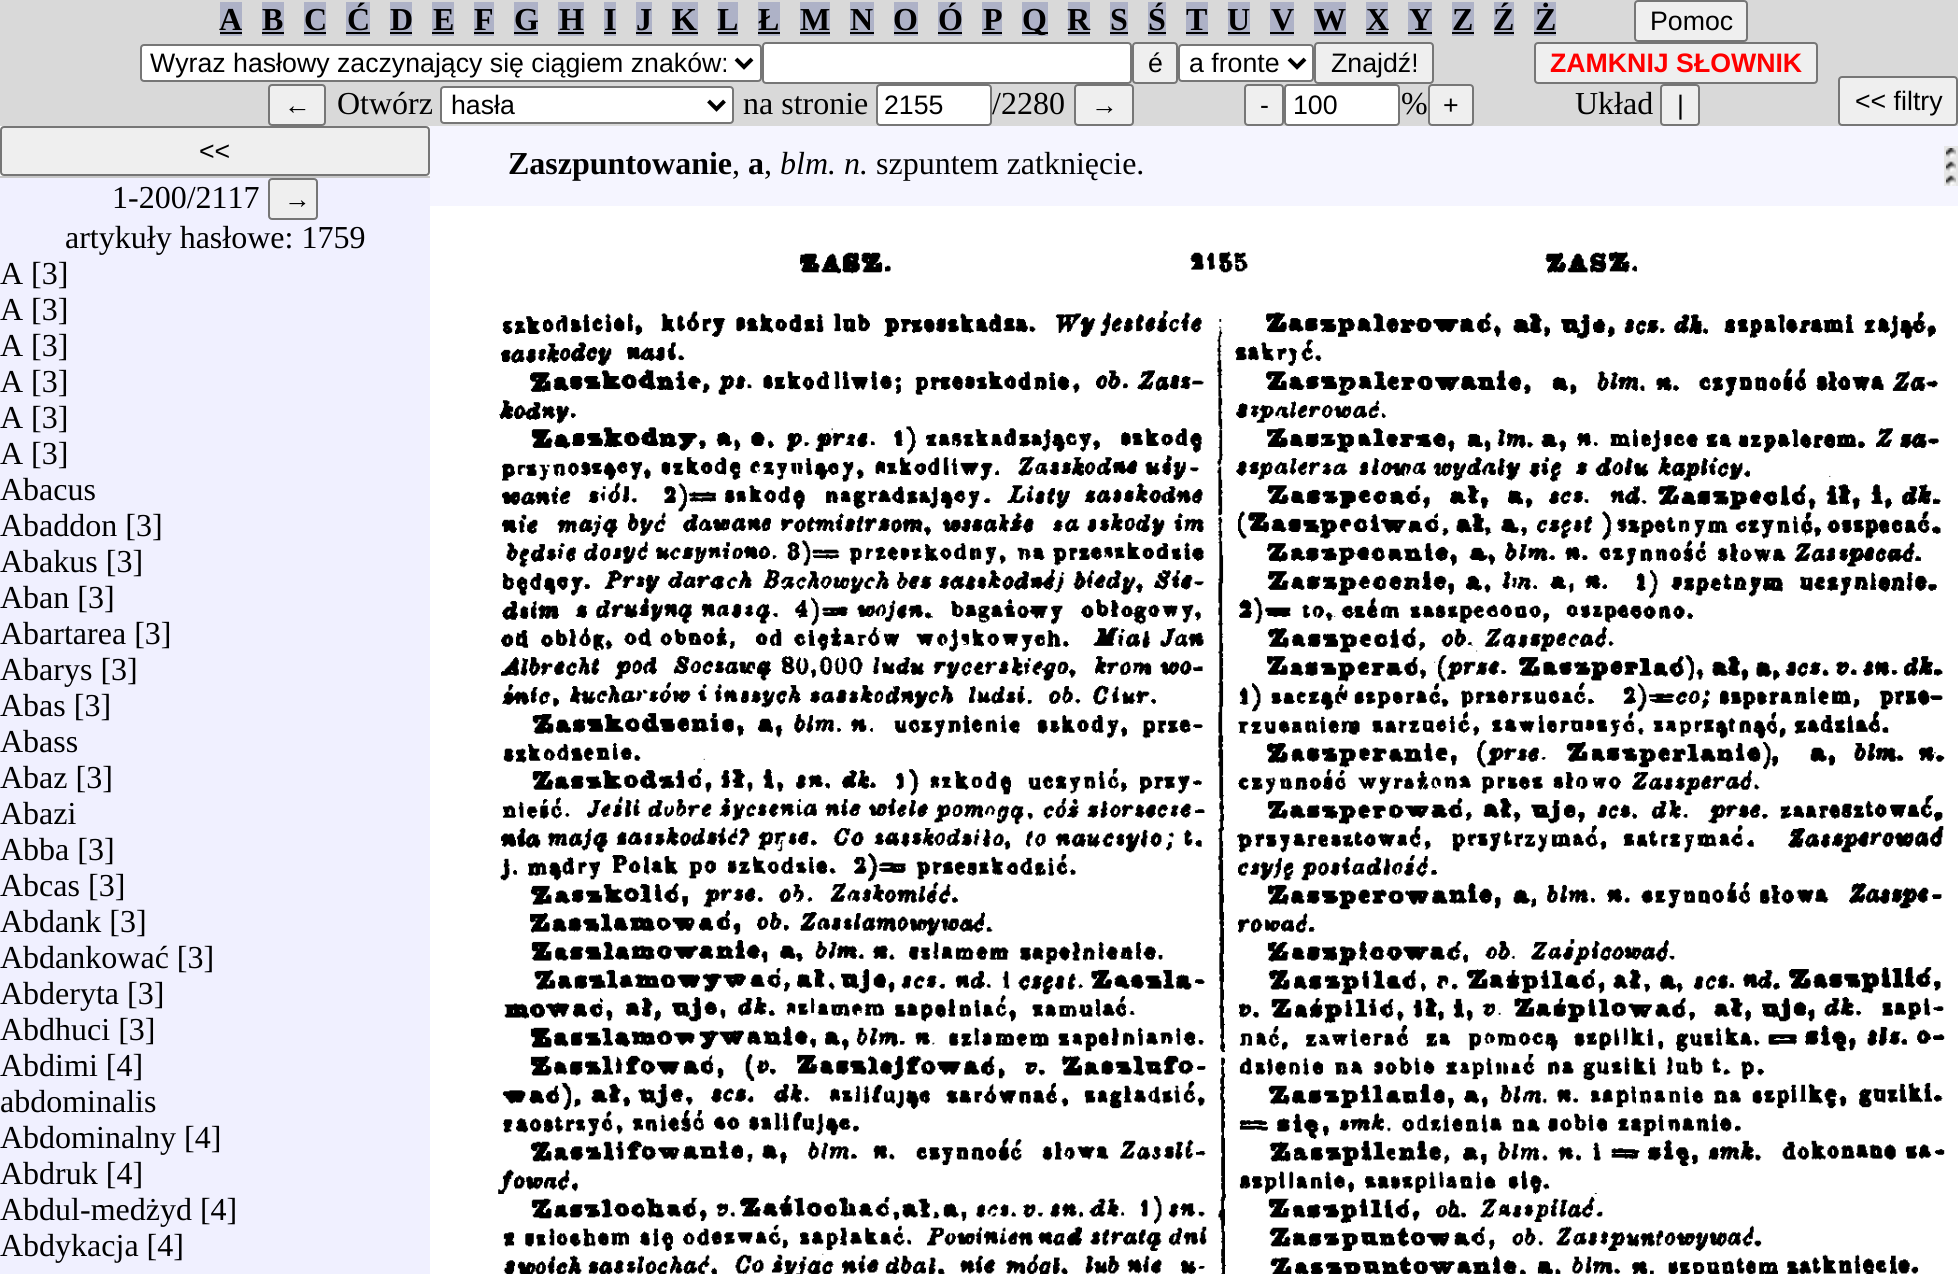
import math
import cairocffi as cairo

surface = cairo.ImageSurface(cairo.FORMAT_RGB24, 1958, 1274)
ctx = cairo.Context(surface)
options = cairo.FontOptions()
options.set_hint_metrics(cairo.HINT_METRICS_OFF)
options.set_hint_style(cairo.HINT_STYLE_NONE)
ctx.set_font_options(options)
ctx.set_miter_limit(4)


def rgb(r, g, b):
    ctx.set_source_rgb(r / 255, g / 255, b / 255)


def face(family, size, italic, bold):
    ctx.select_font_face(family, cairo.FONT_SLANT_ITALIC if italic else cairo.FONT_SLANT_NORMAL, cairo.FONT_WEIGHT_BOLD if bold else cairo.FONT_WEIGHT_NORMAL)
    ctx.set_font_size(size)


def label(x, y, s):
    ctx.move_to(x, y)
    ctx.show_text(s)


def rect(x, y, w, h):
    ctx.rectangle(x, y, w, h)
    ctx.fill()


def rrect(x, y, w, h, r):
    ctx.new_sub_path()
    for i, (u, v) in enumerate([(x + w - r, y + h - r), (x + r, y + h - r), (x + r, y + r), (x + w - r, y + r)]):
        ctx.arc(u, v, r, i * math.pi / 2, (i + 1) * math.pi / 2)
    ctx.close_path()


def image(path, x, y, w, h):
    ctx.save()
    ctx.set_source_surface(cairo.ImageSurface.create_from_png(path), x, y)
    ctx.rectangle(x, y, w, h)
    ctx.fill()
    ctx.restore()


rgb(255, 255, 255)
ctx.paint()
rgb(217, 217, 217)
rect(0, 0, 1958, 126)
rgb(174, 178, 199)
rect(220, 2, 22, 34)
face('Liberation Serif', 32, 0, 1)
rgb(0, 0, 0)
label(219, 30, 'A')
rect(220, 32, 22, 2)
rgb(174, 178, 199)
rect(262, 2, 22, 34)
rgb(0, 0, 0)
label(262, 30, 'B')
rect(262, 32, 22, 2)
rgb(174, 178, 199)
rect(304, 2, 22, 34)
rgb(0, 0, 0)
label(304, 30, 'C')
rect(304, 32, 22, 2)
rgb(174, 178, 199)
rect(346, 2, 24, 34)
rgb(0, 0, 0)
label(347, 30, 'Ć')
rect(346, 32, 24, 2)
rgb(174, 178, 199)
rect(390, 2, 22, 34)
rgb(0, 0, 0)
label(390, 30, 'D')
rect(390, 32, 22, 2)
rgb(174, 178, 199)
rect(432, 2, 22, 34)
rgb(0, 0, 0)
label(433, 30, 'E')
rect(432, 32, 22, 2)
rgb(174, 178, 199)
rect(474, 2, 20, 34)
rgb(0, 0, 0)
label(474, 30, 'F')
rect(474, 32, 20, 2)
rgb(174, 178, 199)
rect(514, 2, 24, 34)
rgb(0, 0, 0)
label(514, 30, 'G')
rect(514, 32, 24, 2)
rgb(174, 178, 199)
rect(558, 2, 26, 34)
rgb(0, 0, 0)
label(559, 30, 'H')
rect(558, 32, 26, 2)
rgb(174, 178, 199)
rect(604, 2, 12, 34)
rgb(0, 0, 0)
label(604, 30, 'I')
rect(604, 32, 12, 2)
rgb(174, 178, 199)
rect(636, 2, 16, 34)
rgb(0, 0, 0)
label(636, 30, 'J')
rect(636, 32, 16, 2)
rgb(174, 178, 199)
rect(672, 2, 26, 34)
rgb(0, 0, 0)
label(672, 30, 'K')
rect(672, 32, 26, 2)
rgb(174, 178, 199)
rect(718, 2, 20, 34)
rgb(0, 0, 0)
label(717, 30, 'L')
rect(718, 32, 20, 2)
rgb(174, 178, 199)
rect(758, 2, 22, 34)
rgb(0, 0, 0)
label(758, 30, 'Ł')
rect(758, 32, 22, 2)
rgb(174, 178, 199)
rect(800, 2, 30, 34)
rgb(0, 0, 0)
label(800, 30, 'M')
rect(800, 32, 30, 2)
rgb(174, 178, 199)
rect(850, 2, 24, 34)
rgb(0, 0, 0)
label(850, 30, 'N')
rect(850, 32, 24, 2)
rgb(174, 178, 199)
rect(894, 2, 24, 34)
rgb(0, 0, 0)
label(893, 30, 'O')
rect(894, 32, 24, 2)
rgb(174, 178, 199)
rect(938, 2, 24, 34)
rgb(0, 0, 0)
label(938, 30, 'Ó')
rect(938, 32, 24, 2)
rgb(174, 178, 199)
rect(982, 2, 20, 34)
rgb(0, 0, 0)
label(983, 30, 'P')
rect(982, 32, 20, 2)
rgb(174, 178, 199)
rect(1022, 2, 26, 34)
rgb(0, 0, 0)
rect(1022, 32, 26, 2)
label(1022, 30, 'Q')
rgb(174, 178, 199)
rect(1068, 2, 22, 34)
rgb(0, 0, 0)
label(1067, 30, 'R')
rect(1068, 32, 22, 2)
rgb(174, 178, 199)
rect(1110, 2, 18, 34)
rgb(0, 0, 0)
label(1110, 30, 'S')
rect(1110, 32, 18, 2)
rgb(174, 178, 199)
rect(1148, 2, 18, 34)
rgb(0, 0, 0)
label(1148, 30, 'Ś')
rect(1148, 32, 18, 2)
rgb(174, 178, 199)
rect(1186, 2, 22, 34)
rgb(0, 0, 0)
label(1186, 30, 'T')
rect(1186, 32, 22, 2)
rgb(174, 178, 199)
rect(1228, 2, 22, 34)
rgb(0, 0, 0)
label(1227, 30, 'U')
rect(1228, 32, 22, 2)
rgb(174, 178, 199)
rect(1270, 2, 24, 34)
rgb(0, 0, 0)
label(1271, 30, 'V')
rect(1270, 32, 24, 2)
rgb(174, 178, 199)
rect(1314, 2, 32, 34)
rgb(0, 0, 0)
label(1314, 30, 'W')
rect(1314, 32, 32, 2)
rgb(174, 178, 199)
rect(1366, 2, 22, 34)
rgb(0, 0, 0)
label(1366, 30, 'X')
rect(1366, 32, 22, 2)
rgb(174, 178, 199)
rect(1408, 2, 24, 34)
rgb(0, 0, 0)
label(1409, 30, 'Y')
rect(1408, 32, 24, 2)
rgb(174, 178, 199)
rect(1452, 2, 22, 34)
rgb(0, 0, 0)
label(1452, 30, 'Z')
rect(1452, 32, 22, 2)
rgb(174, 178, 199)
rect(1494, 2, 20, 34)
rgb(0, 0, 0)
label(1493, 30, 'Ź')
rect(1494, 32, 20, 2)
rgb(174, 178, 199)
rect(1534, 2, 22, 34)
rgb(0, 0, 0)
label(1535, 30, 'Ż')
rect(1534, 32, 22, 2)
rgb(239, 239, 239)
rrect(1635, 1, 112, 40, 3)
ctx.fill_preserve()
rgb(118, 118, 118)
ctx.stroke()
face('Liberation Sans', 26.7, 0, 0)
rgb(0, 0, 0)
label(1650, 30, 'Pomoc')
rgb(255, 255, 255)
rrect(141, 45, 620, 36, 3)
ctx.fill_preserve()
rgb(118, 118, 118)
ctx.stroke()
ctx.new_path()
ctx.move_to(736, 59)
ctx.line_to(744, 67)
ctx.line_to(752, 59)
rgb(0, 0, 0)
ctx.set_line_width(4)
ctx.stroke()
label(150, 72, 'Wyraz hasłowy zaczynający się ciągiem znaków:')
rgb(255, 255, 255)
rrect(763, 43, 368, 40, 3)
ctx.fill_preserve()
rgb(118, 118, 118)
ctx.set_line_width(2)
ctx.stroke()
rgb(239, 239, 239)
rrect(1133, 43, 44, 40, 3)
ctx.fill_preserve()
rgb(118, 118, 118)
ctx.stroke()
rgb(0, 0, 0)
label(1148, 72, 'é')
rgb(255, 255, 255)
rrect(1179, 45, 134, 36, 3)
ctx.fill_preserve()
rgb(118, 118, 118)
ctx.stroke()
ctx.new_path()
ctx.move_to(1289, 59)
ctx.line_to(1297, 67)
ctx.line_to(1305, 59)
rgb(0, 0, 0)
ctx.set_line_width(4)
ctx.stroke()
label(1189, 72, 'a fronte')
rgb(239, 239, 239)
rrect(1315, 43, 118, 40, 3)
ctx.fill_preserve()
rgb(118, 118, 118)
ctx.set_line_width(2)
ctx.stroke()
rgb(0, 0, 0)
label(1331, 72, 'Znajdź!')
rgb(239, 239, 239)
rrect(1535, 43, 282, 40, 3)
ctx.fill_preserve()
rgb(118, 118, 118)
ctx.stroke()
face('Liberation Sans', 26.7, 0, 1)
rgb(255, 0, 0)
label(1550, 72, 'ZAMKNIJ SŁOWNIK')
rgb(239, 239, 239)
rrect(269, 85, 56, 40, 3)
ctx.fill_preserve()
rgb(118, 118, 118)
ctx.stroke()
face('Liberation Sans', 26.7, 0, 0)
rgb(0, 0, 0)
label(284, 114, '←')
face('Liberation Serif', 32, 0, 0)
label(337, 114, 'Otwórz')
rgb(255, 255, 255)
rrect(441, 87, 292, 36, 3)
ctx.fill_preserve()
rgb(118, 118, 118)
ctx.stroke()
ctx.new_path()
ctx.move_to(708.5, 101)
ctx.line_to(716.5, 109)
ctx.line_to(724.5, 101)
rgb(0, 0, 0)
ctx.set_line_width(4)
ctx.stroke()
face('Liberation Sans', 26.7, 0, 0)
label(451, 114, 'hasła')
face('Liberation Serif', 32, 0, 0)
label(743, 114, 'na stronie')
rgb(255, 255, 255)
rrect(877, 85, 114, 40, 3)
ctx.fill_preserve()
rgb(118, 118, 118)
ctx.set_line_width(2)
ctx.stroke()
face('Liberation Sans', 26.7, 0, 0)
rgb(0, 0, 0)
label(884, 114, '2155')
face('Liberation Serif', 32, 0, 0)
label(992, 114, '/2280')
rgb(239, 239, 239)
rrect(1075, 85, 58, 40, 3)
ctx.fill_preserve()
rgb(118, 118, 118)
ctx.stroke()
face('Liberation Sans', 26.7, 0, 0)
rgb(0, 0, 0)
label(1091, 114, '→')
rgb(239, 239, 239)
rrect(1245, 85, 38, 40, 3)
ctx.fill_preserve()
rgb(118, 118, 118)
ctx.stroke()
rgb(0, 0, 0)
label(1260, 114, '-')
rgb(255, 255, 255)
rrect(1285, 85, 114, 40, 3)
ctx.fill_preserve()
rgb(118, 118, 118)
ctx.stroke()
rgb(0, 0, 0)
label(1293, 114, '100')
face('Liberation Serif', 32, 0, 0)
label(1401, 114, '%')
rgb(239, 239, 239)
rrect(1429, 85, 44, 40, 3)
ctx.fill_preserve()
rgb(118, 118, 118)
ctx.stroke()
face('Liberation Sans', 26.7, 0, 0)
rgb(0, 0, 0)
label(1443, 114, '+')
face('Liberation Serif', 32, 0, 0)
label(1575, 114, 'Układ')
rgb(239, 239, 239)
rrect(1661, 85, 38, 40, 3)
ctx.fill_preserve()
rgb(118, 118, 118)
ctx.stroke()
face('Liberation Sans', 26.7, 0, 0)
rgb(0, 0, 0)
label(1677, 114, '|')
rgb(239, 239, 239)
rrect(1839, 77, 118, 48, 3)
ctx.fill_preserve()
rgb(118, 118, 118)
ctx.stroke()
rgb(0, 0, 0)
label(1855, 110, '<< filtry')
rgb(239, 239, 239)
rrect(1, 127, 428, 48, 3)
ctx.fill_preserve()
rgb(118, 118, 118)
ctx.stroke()
rgb(0, 0, 0)
label(199, 160, '<<')
rgb(245, 245, 255)
rect(430, 126, 1528, 80)
face('Liberation Serif', 32, 0, 1)
rgb(0, 0, 0)
label(508, 174, 'Zaszpuntowanie')
face('Liberation Serif', 32, 0, 0)
label(732, 174, ',')
face('Liberation Serif', 32, 0, 1)
label(748, 174, 'a')
face('Liberation Serif', 32, 0, 0)
label(764, 174, ',')
face('Liberation Serif', 32, 1, 0)
label(780, 174, 'blm. n.')
face('Liberation Serif', 32, 0, 0)
label(876, 174, 'szpuntem zatknięcie.')
rgb(230, 230, 230)
rect(1944, 146, 14, 40)
image('image0.png', 1946, 148, 10, 38)
image('image1.png', 498, 251, 1447, 1023)
rgb(240, 240, 255)
rect(0, 178, 430, 1096)
rgb(200, 200, 200)
rect(0, 176, 430, 2)
rgb(0, 0, 0)
label(112, 208, '1-200/2117')
rgb(239, 239, 239)
rrect(269, 179, 48, 40, 3)
ctx.fill_preserve()
rgb(118, 118, 118)
ctx.stroke()
face('Liberation Sans', 26.7, 0, 0)
rgb(0, 0, 0)
label(284, 208, '→')
face('Liberation Serif', 32, 0, 0)
label(65, 248, 'artykuły hasłowe: 1759')
label(0, 284, 'A [3]')
label(0, 320, 'A [3]')
label(0, 356, 'A [3]')
label(0, 392, 'A [3]')
label(0, 428, 'A [3]')
label(0, 464, 'A [3]')
label(0, 500, 'Abacus')
label(0, 536, 'Abaddon [3]')
label(0, 572, 'Abakus [3]')
label(0, 608, 'Aban [3]')
label(0, 644, 'Abartarea [3]')
label(0, 680, 'Abarys [3]')
label(0, 716, 'Abas [3]')
label(0, 752, 'Abass')
label(0, 788, 'Abaz [3]')
label(0, 824, 'Abazi')
label(0, 860, 'Abba [3]')
label(0, 896, 'Abcas [3]')
label(0, 932, 'Abdank [3]')
label(0, 968, 'Abdankować [3]')
label(0, 1004, 'Abderyta [3]')
label(0, 1040, 'Abdhuci [3]')
label(0, 1076, 'Abdimi [4]')
label(0, 1112, 'abdominalis')
label(0, 1148, 'Abdominalny [4]')
label(0, 1184, 'Abdruk [4]')
label(0, 1220, 'Abdul-medżyd [4]')
label(0, 1256, 'Abdykacja [4]')
surface.write_to_png('render.png')
